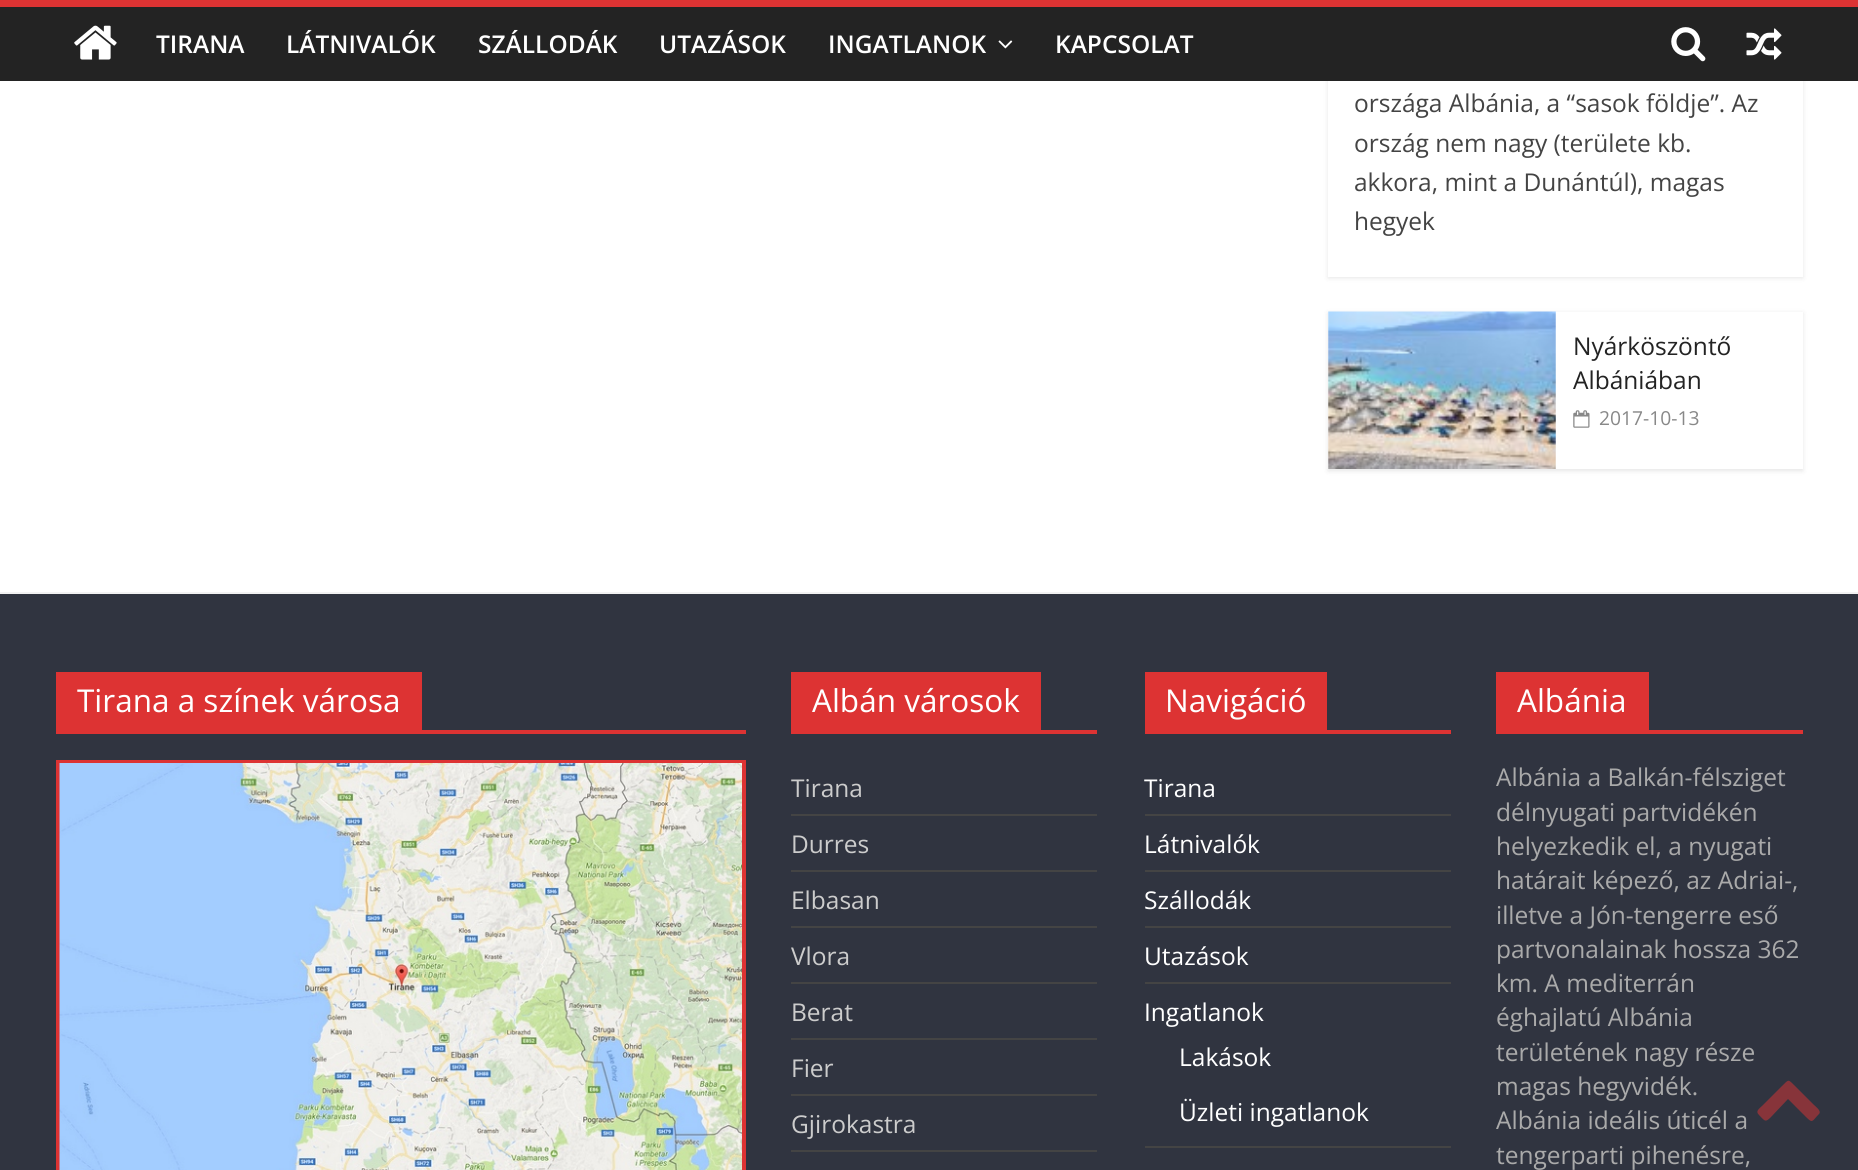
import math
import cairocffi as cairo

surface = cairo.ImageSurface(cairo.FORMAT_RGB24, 1858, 1170)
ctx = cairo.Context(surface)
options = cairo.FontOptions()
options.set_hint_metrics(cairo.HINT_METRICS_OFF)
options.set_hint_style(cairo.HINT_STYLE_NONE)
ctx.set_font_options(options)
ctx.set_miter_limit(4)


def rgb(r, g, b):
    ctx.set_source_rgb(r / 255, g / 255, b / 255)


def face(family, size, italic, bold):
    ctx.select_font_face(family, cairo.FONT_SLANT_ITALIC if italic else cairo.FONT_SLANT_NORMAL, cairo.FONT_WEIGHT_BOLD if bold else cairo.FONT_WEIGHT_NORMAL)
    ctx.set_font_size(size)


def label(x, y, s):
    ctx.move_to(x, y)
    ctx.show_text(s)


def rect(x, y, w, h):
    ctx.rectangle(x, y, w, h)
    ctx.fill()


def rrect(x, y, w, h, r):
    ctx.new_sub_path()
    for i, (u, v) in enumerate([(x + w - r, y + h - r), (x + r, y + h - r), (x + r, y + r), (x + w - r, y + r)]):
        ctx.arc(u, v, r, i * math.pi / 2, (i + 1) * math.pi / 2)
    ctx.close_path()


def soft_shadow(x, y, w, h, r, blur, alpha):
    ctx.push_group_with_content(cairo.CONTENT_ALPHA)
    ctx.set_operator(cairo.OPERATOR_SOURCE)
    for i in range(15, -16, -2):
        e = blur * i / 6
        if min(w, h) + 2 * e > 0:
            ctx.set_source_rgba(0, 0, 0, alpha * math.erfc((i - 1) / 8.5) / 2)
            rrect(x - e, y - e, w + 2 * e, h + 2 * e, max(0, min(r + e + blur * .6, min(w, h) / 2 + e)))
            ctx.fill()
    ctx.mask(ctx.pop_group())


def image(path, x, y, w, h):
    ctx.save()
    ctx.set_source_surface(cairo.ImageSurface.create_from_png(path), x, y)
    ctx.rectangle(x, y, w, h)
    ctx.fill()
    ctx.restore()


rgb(255, 255, 255)
ctx.paint()
rgb(0, 0, 0)
soft_shadow(1328, -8, 475, 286, 0, 2.5, 0.1)
rgb(35, 35, 35)
rect(0, 7, 1858, 74)
rgb(221, 51, 51)
rect(0, 0, 1858, 7)
image('image0.png', 74, 25, 43, 35)
face('Open Sans SemiBold', 24.5, 0, 0)
rgb(255, 255, 255)
label(156, 53, 'TIRANA')
label(286, 53, 'LÁTNIVALÓK')
label(478, 53, 'SZÁLLODÁK')
label(659, 53, 'UTAZÁSOK')
label(828, 53, 'INGATLANOK')
image('image1.png', 998, 40, 15, 9)
label(1055, 53, 'KAPCSOLAT')
image('image2.png', 1671, 27, 35, 35)
image('image3.png', 1746, 28, 36, 32)
rect(1328, 81, 475, 196)
face('Open Sans', 24.5, 0, 0)
rgb(68, 68, 68)
label(1354, 112, 'országa Albánia, a “sasok földje”. Az')
label(1354, 152, 'ország nem nagy (területe kb.')
label(1354, 191, 'akkora, mint a Dunántúl), magas')
label(1354, 230, 'hegyek')
rgb(0, 0, 0)
soft_shadow(1328, 313, 475, 158, 0, 2.5, 0.1)
rgb(255, 255, 255)
rect(1328, 312, 475, 157)
image('image4.png', 1328, 311, 228, 158)
rgb(35, 35, 35)
label(1573, 355, 'Nyárköszöntő')
label(1573, 389, 'Albániában')
image('image5.png', 1573, 410, 17, 18)
face('Open Sans', 19.25, 0, 0)
rgb(136, 136, 136)
label(1599, 425, '2017-10-13')
rgb(48, 52, 64)
rect(0, 594, 1858, 576)
rgb(242, 242, 242)
rect(0, 592, 1858, 2)
rgb(221, 51, 51)
rect(56, 730, 690, 4)
rect(56, 672, 366, 58)
face('Open Sans', 31.5, 0, 0)
rgb(255, 255, 255)
label(77, 712, 'Tirana a színek városa')
ctx.rectangle(58, 762, 686, 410)
rgb(221, 51, 51)
ctx.set_line_width(4)
ctx.stroke()
image('image6.png', 59, 763, 683, 407)
rect(791, 730, 306, 4)
rect(791, 672, 250, 58)
rgb(255, 255, 255)
label(812, 712, 'Albán városok')
rgb(68, 68, 68)
rect(791, 814, 306, 2)
face('Open Sans', 24.5, 0, 0)
rgb(204, 204, 204)
label(791, 797, 'Tirana')
rgb(68, 68, 68)
rect(791, 870, 306, 2)
rgb(204, 204, 204)
label(791, 853, 'Durres')
rgb(68, 68, 68)
rect(791, 926, 306, 2)
rgb(204, 204, 204)
label(791, 909, 'Elbasan')
rgb(68, 68, 68)
rect(791, 982, 306, 2)
rgb(204, 204, 204)
label(791, 965, 'Vlora')
rgb(68, 68, 68)
rect(791, 1038, 306, 2)
rgb(204, 204, 204)
label(791, 1021, 'Berat')
rgb(68, 68, 68)
rect(791, 1094, 306, 2)
rgb(204, 204, 204)
label(791, 1077, 'Fier')
rgb(68, 68, 68)
rect(791, 1150, 306, 2)
rgb(204, 204, 204)
label(791, 1133, 'Gjirokastra')
rgb(221, 51, 51)
rect(1145, 730, 306, 4)
rect(1145, 672, 182, 58)
face('Open Sans', 31.5, 0, 0)
rgb(255, 255, 255)
label(1165, 712, 'Navigáció')
rgb(68, 68, 68)
rect(1145, 814, 306, 2)
face('Open Sans', 24.5, 0, 0)
rgb(255, 255, 255)
label(1144, 797, 'Tirana')
rgb(68, 68, 68)
rect(1145, 870, 306, 2)
rgb(255, 255, 255)
label(1144, 853, 'Látnivalók')
rgb(68, 68, 68)
rect(1145, 926, 306, 2)
rgb(255, 255, 255)
label(1144, 909, 'Szállodák')
rgb(68, 68, 68)
rect(1145, 982, 306, 2)
rgb(255, 255, 255)
label(1144, 965, 'Utazások')
rgb(68, 68, 68)
rect(1145, 1146, 306, 2)
rgb(255, 255, 255)
label(1144, 1021, 'Ingatlanok')
label(1179, 1066, 'Lakások')
label(1179, 1121, 'Üzleti ingatlanok')
rgb(221, 51, 51)
rect(1496, 730, 307, 4)
rect(1496, 672, 153, 58)
face('Open Sans', 31.5, 0, 0)
rgb(255, 255, 255)
label(1517, 712, 'Albánia')
face('Open Sans', 24.5, 0, 0)
rgb(170, 170, 170)
label(1496, 786, 'Albánia a Balkán-félsziget')
label(1496, 821, 'délnyugati partvidékén')
label(1496, 855, 'helyezkedik el, a nyugati')
label(1496, 889, 'határait képező, az Adriai-,')
label(1496, 924, 'illetve a Jón-tengerre eső')
label(1496, 958, 'partvonalainak hossza 362')
label(1496, 992, 'km. A mediterrán')
label(1496, 1026, 'éghajlatú Albánia')
label(1496, 1061, 'területének nagy része')
label(1496, 1095, 'magas hegyvidék.')
label(1496, 1129, 'Albánia ideális úticél a')
label(1496, 1164, 'tengerparti pihenésre,')
rgb(135, 52, 58)
ctx.new_path()
ctx.move_to(1819, 1114)
ctx.curve_to(1812, 1121, 1813, 1124, 1806, 1117)
ctx.line_to(1788, 1099)
ctx.line_to(1771, 1117)
ctx.curve_to(1765, 1123, 1765, 1121, 1759, 1115)
ctx.curve_to(1755, 1111, 1759, 1109, 1763, 1105)
ctx.line_to(1782, 1086)
ctx.curve_to(1789, 1079, 1788, 1079, 1795, 1086)
ctx.line_to(1814, 1105)
ctx.curve_to(1815, 1106, 1822, 1111, 1819, 1114)
ctx.close_path()
ctx.fill()
surface.write_to_png('render.png')
